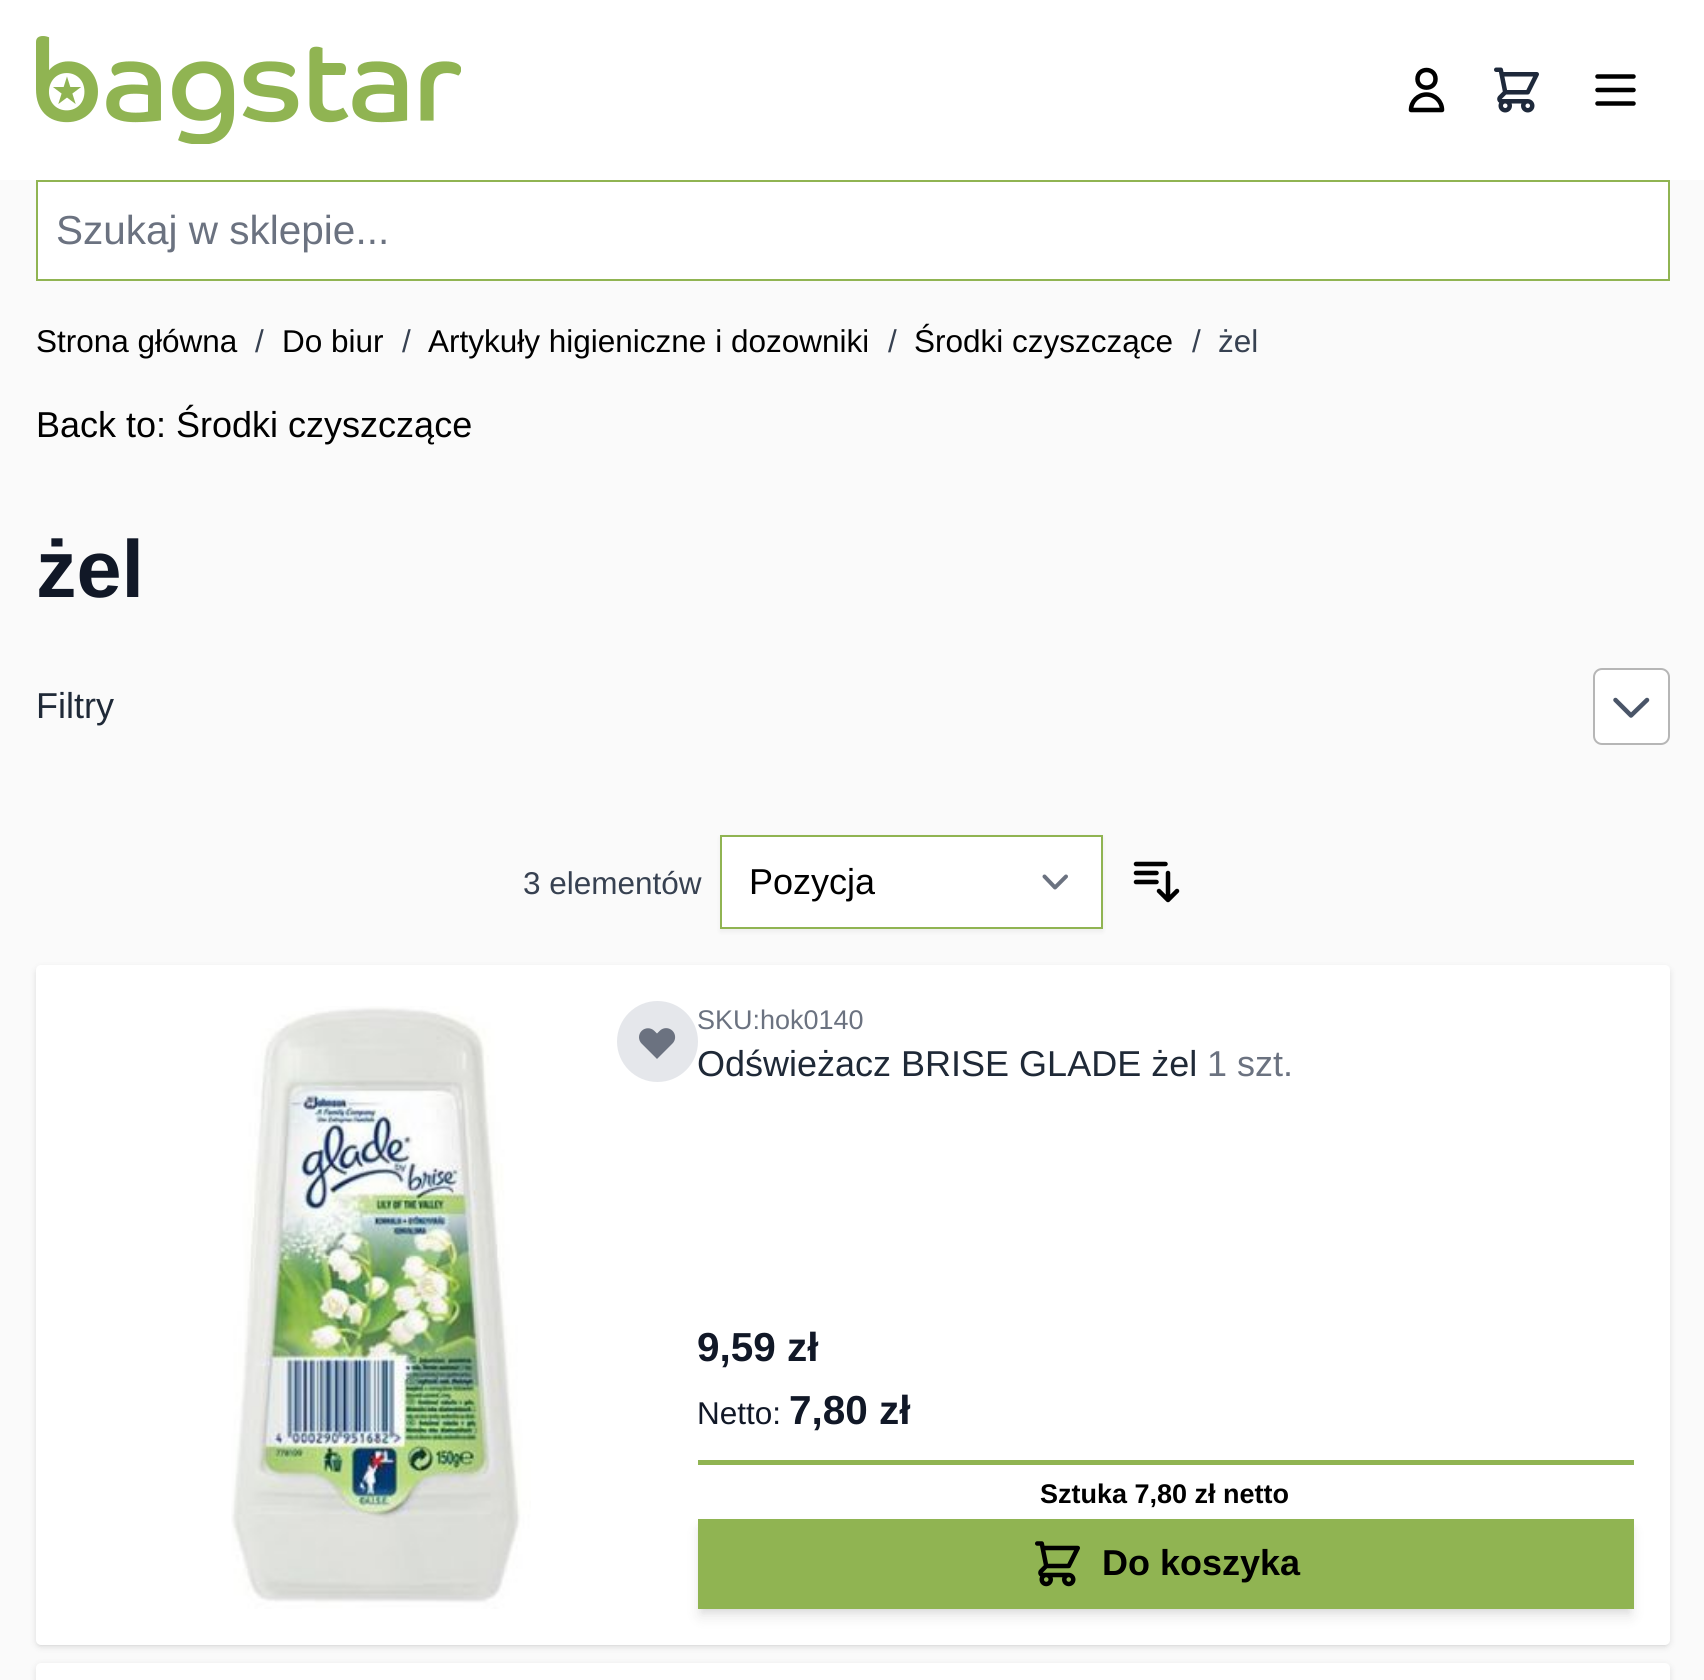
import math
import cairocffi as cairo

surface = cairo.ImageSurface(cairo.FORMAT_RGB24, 1704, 1680)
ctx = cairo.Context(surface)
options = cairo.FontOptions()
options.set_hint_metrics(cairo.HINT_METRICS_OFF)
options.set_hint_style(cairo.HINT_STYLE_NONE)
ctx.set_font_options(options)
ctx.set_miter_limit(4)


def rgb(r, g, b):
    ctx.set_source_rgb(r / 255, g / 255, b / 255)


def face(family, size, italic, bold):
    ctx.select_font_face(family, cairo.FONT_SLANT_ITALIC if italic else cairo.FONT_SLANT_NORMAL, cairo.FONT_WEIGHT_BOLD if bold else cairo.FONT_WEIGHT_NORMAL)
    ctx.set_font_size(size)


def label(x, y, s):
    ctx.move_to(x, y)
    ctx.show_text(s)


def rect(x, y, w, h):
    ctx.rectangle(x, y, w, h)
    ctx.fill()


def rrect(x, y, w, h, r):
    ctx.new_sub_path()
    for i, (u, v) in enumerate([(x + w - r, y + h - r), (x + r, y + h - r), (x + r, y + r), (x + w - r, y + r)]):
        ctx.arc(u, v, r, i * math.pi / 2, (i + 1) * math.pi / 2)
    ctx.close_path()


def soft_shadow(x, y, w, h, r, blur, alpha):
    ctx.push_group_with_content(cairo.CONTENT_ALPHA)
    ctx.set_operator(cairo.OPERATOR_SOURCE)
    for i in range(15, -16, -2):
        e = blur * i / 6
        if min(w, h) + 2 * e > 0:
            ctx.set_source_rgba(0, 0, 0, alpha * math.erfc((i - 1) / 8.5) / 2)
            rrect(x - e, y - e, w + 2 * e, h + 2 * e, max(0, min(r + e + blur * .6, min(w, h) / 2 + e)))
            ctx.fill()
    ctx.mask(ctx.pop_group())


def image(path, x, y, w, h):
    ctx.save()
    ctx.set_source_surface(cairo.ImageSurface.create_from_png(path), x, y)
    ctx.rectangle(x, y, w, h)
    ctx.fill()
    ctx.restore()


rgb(250, 250, 250)
ctx.paint()
rgb(255, 255, 255)
rect(0, 0, 1704, 180)
image('image0.png', 36, 36, 425, 108)
ctx.new_path()
ctx.move_to(1435.5, 79)
ctx.curve_to(1435.5, 90.5, 1417.5, 90.5, 1417.5, 79)
ctx.curve_to(1417.5, 67, 1435.5, 67, 1435.5, 79)
ctx.close_path()
ctx.move_to(1426.5, 94.5)
ctx.curve_to(1418, 94.5, 1411, 101.5, 1411, 110)
ctx.line_to(1442, 110)
ctx.curve_to(1442, 101.5, 1435, 94.5, 1426.5, 94.5)
ctx.close_path()
rgb(0, 0, 0)
ctx.set_line_width(4.5)
ctx.set_line_cap(cairo.LINE_CAP_ROUND)
ctx.set_line_join(cairo.LINE_JOIN_ROUND)
ctx.stroke()
image('image1.png', 1494, 67, 45, 46)
ctx.new_path()
ctx.move_to(1597.5, 76.5)
ctx.line_to(1633.5, 76.5)
ctx.move_to(1597.5, 90)
ctx.line_to(1633.5, 90)
ctx.move_to(1597.5, 103.5)
ctx.line_to(1633.5, 103.5)
ctx.stroke()
rgb(255, 255, 255)
ctx.rectangle(37, 181, 1632, 99)
ctx.fill_preserve()
rgb(144, 180, 82)
ctx.set_line_width(2)
ctx.set_line_cap(cairo.LINE_CAP_BUTT)
ctx.set_line_join(cairo.LINE_JOIN_MITER)
ctx.stroke()
face('Liberation Sans', 40.5, 0, 0)
rgb(107, 114, 128)
label(56, 244, 'Szukaj w sklepie...')
face('Liberation Sans', 31.5, 0, 0)
rgb(0, 0, 0)
label(36, 352, 'Strona główna')
rgb(55, 65, 81)
label(255, 352, '/')
rgb(0, 0, 0)
label(282, 352, 'Do biur')
rgb(55, 65, 81)
label(402, 352, '/')
rgb(0, 0, 0)
label(428, 352, 'Artykuły higieniczne i dozowniki')
rgb(55, 65, 81)
label(888, 352, '/')
rgb(0, 0, 0)
label(914, 352, 'Środki czyszczące')
rgb(55, 65, 81)
label(1192, 352, '/')
label(1218, 352, 'żel')
face('Liberation Sans', 36, 0, 0)
rgb(0, 0, 0)
label(36, 437, 'Back to: Środki czyszczące')
face('Liberation Sans', 81, 0, 1)
rgb(17, 24, 39)
label(36, 597, 'żel')
face('Liberation Sans', 36, 0, 0)
rgb(31, 41, 55)
label(36, 718, 'Filtry')
rgb(255, 255, 255)
rrect(1594, 669, 75, 75, 8)
ctx.fill_preserve()
rgb(182, 182, 182)
ctx.stroke()
ctx.new_path()
ctx.move_to(1647, 700)
ctx.line_to(1631, 715.5)
ctx.line_to(1615.5, 700)
rgb(74, 85, 104)
ctx.set_line_width(4.5)
ctx.set_line_cap(cairo.LINE_CAP_ROUND)
ctx.set_line_join(cairo.LINE_JOIN_ROUND)
ctx.stroke()
face('Liberation Sans', 31.5, 0, 0)
rgb(55, 65, 81)
label(523, 894, '3 elementów')
rgb(0, 0, 0)
soft_shadow(720, 837, 383, 95, 0, 2, 0.05)
rgb(255, 255, 255)
rect(722, 837, 379, 90)
ctx.new_path()
ctx.move_to(1044.5, 876.5)
ctx.line_to(1055, 887.5)
ctx.line_to(1066, 876.5)
rgb(107, 114, 128)
ctx.set_line_width(4)
ctx.stroke()
ctx.rectangle(721, 836, 381, 92)
rgb(144, 180, 82)
ctx.set_line_width(2)
ctx.set_line_cap(cairo.LINE_CAP_BUTT)
ctx.set_line_join(cairo.LINE_JOIN_MITER)
ctx.stroke()
face('Liberation Sans', 36, 0, 0)
rgb(0, 0, 0)
label(749, 894, 'Pozycja')
ctx.new_path()
ctx.move_to(1136, 864)
ctx.line_to(1165.5, 864)
ctx.move_to(1136, 873)
ctx.line_to(1156.5, 873)
ctx.move_to(1136, 882)
ctx.line_to(1156.5, 882)
ctx.move_to(1168, 873)
ctx.line_to(1168, 900)
ctx.move_to(1168, 900)
ctx.line_to(1159, 891)
ctx.move_to(1168, 900)
ctx.line_to(1177, 891)
ctx.set_line_width(4.5)
ctx.set_line_cap(cairo.LINE_CAP_ROUND)
ctx.set_line_join(cairo.LINE_JOIN_ROUND)
ctx.stroke()
rgb(0, 0, 0)
soft_shadow(38, 970, 1629, 675, 2, 2, 0.1)
soft_shadow(36, 968, 1634, 679, 5, 3.5, 0.1)
rgb(255, 255, 255)
rrect(36, 965, 1634, 680, 5)
ctx.fill()
image('image2.png', 231, 1006, 300, 603)
face('Liberation Sans', 27, 0, 0)
rgb(107, 114, 128)
label(697, 1029, 'SKU:hok0140')
rgb(229, 231, 235)
ctx.new_path()
ctx.arc(657.5, 1041.5, 40.5, 0, 2 * math.pi)
ctx.fill()
image('image3.png', 639, 1028, 37, 31)
face('Liberation Sans', 36, 0, 0)
rgb(31, 41, 55)
label(697, 1076, 'Odświeżacz BRISE GLADE żel')
rgb(107, 114, 128)
label(1207, 1076, '1 szt.')
face('Liberation Sans', 40.5, 0, 1)
rgb(17, 24, 39)
label(697, 1361, '9,59 zł')
face('Liberation Sans', 31.5, 0, 0)
label(697, 1424, 'Netto:')
face('Liberation Sans', 40.5, 0, 1)
label(789, 1424, '7,80 zł')
rgb(144, 180, 82)
rect(698, 1460, 936, 5)
face('Liberation Sans', 27, 0, 1)
rgb(0, 0, 0)
label(1040, 1503, 'Sztuka 7,80 zł netto')
rgb(0, 0, 0)
soft_shadow(702, 1528, 927, 81, 0, 4.5, 0.1)
soft_shadow(700, 1530, 931, 86, 0, 7, 0.1)
rgb(144, 180, 82)
rect(698, 1519, 936, 90)
image('image4.png', 1035, 1541, 45, 46)
face('Liberation Sans', 36, 0, 1)
rgb(0, 0, 0)
label(1102, 1575, 'Do koszyka')
rgb(0, 0, 0)
soft_shadow(36, 1665, 1634, 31, 5, 3.5, 0.1)
rgb(255, 255, 255)
rrect(36, 1663, 1634, 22, 5)
ctx.fill()
surface.write_to_png('render.png')
